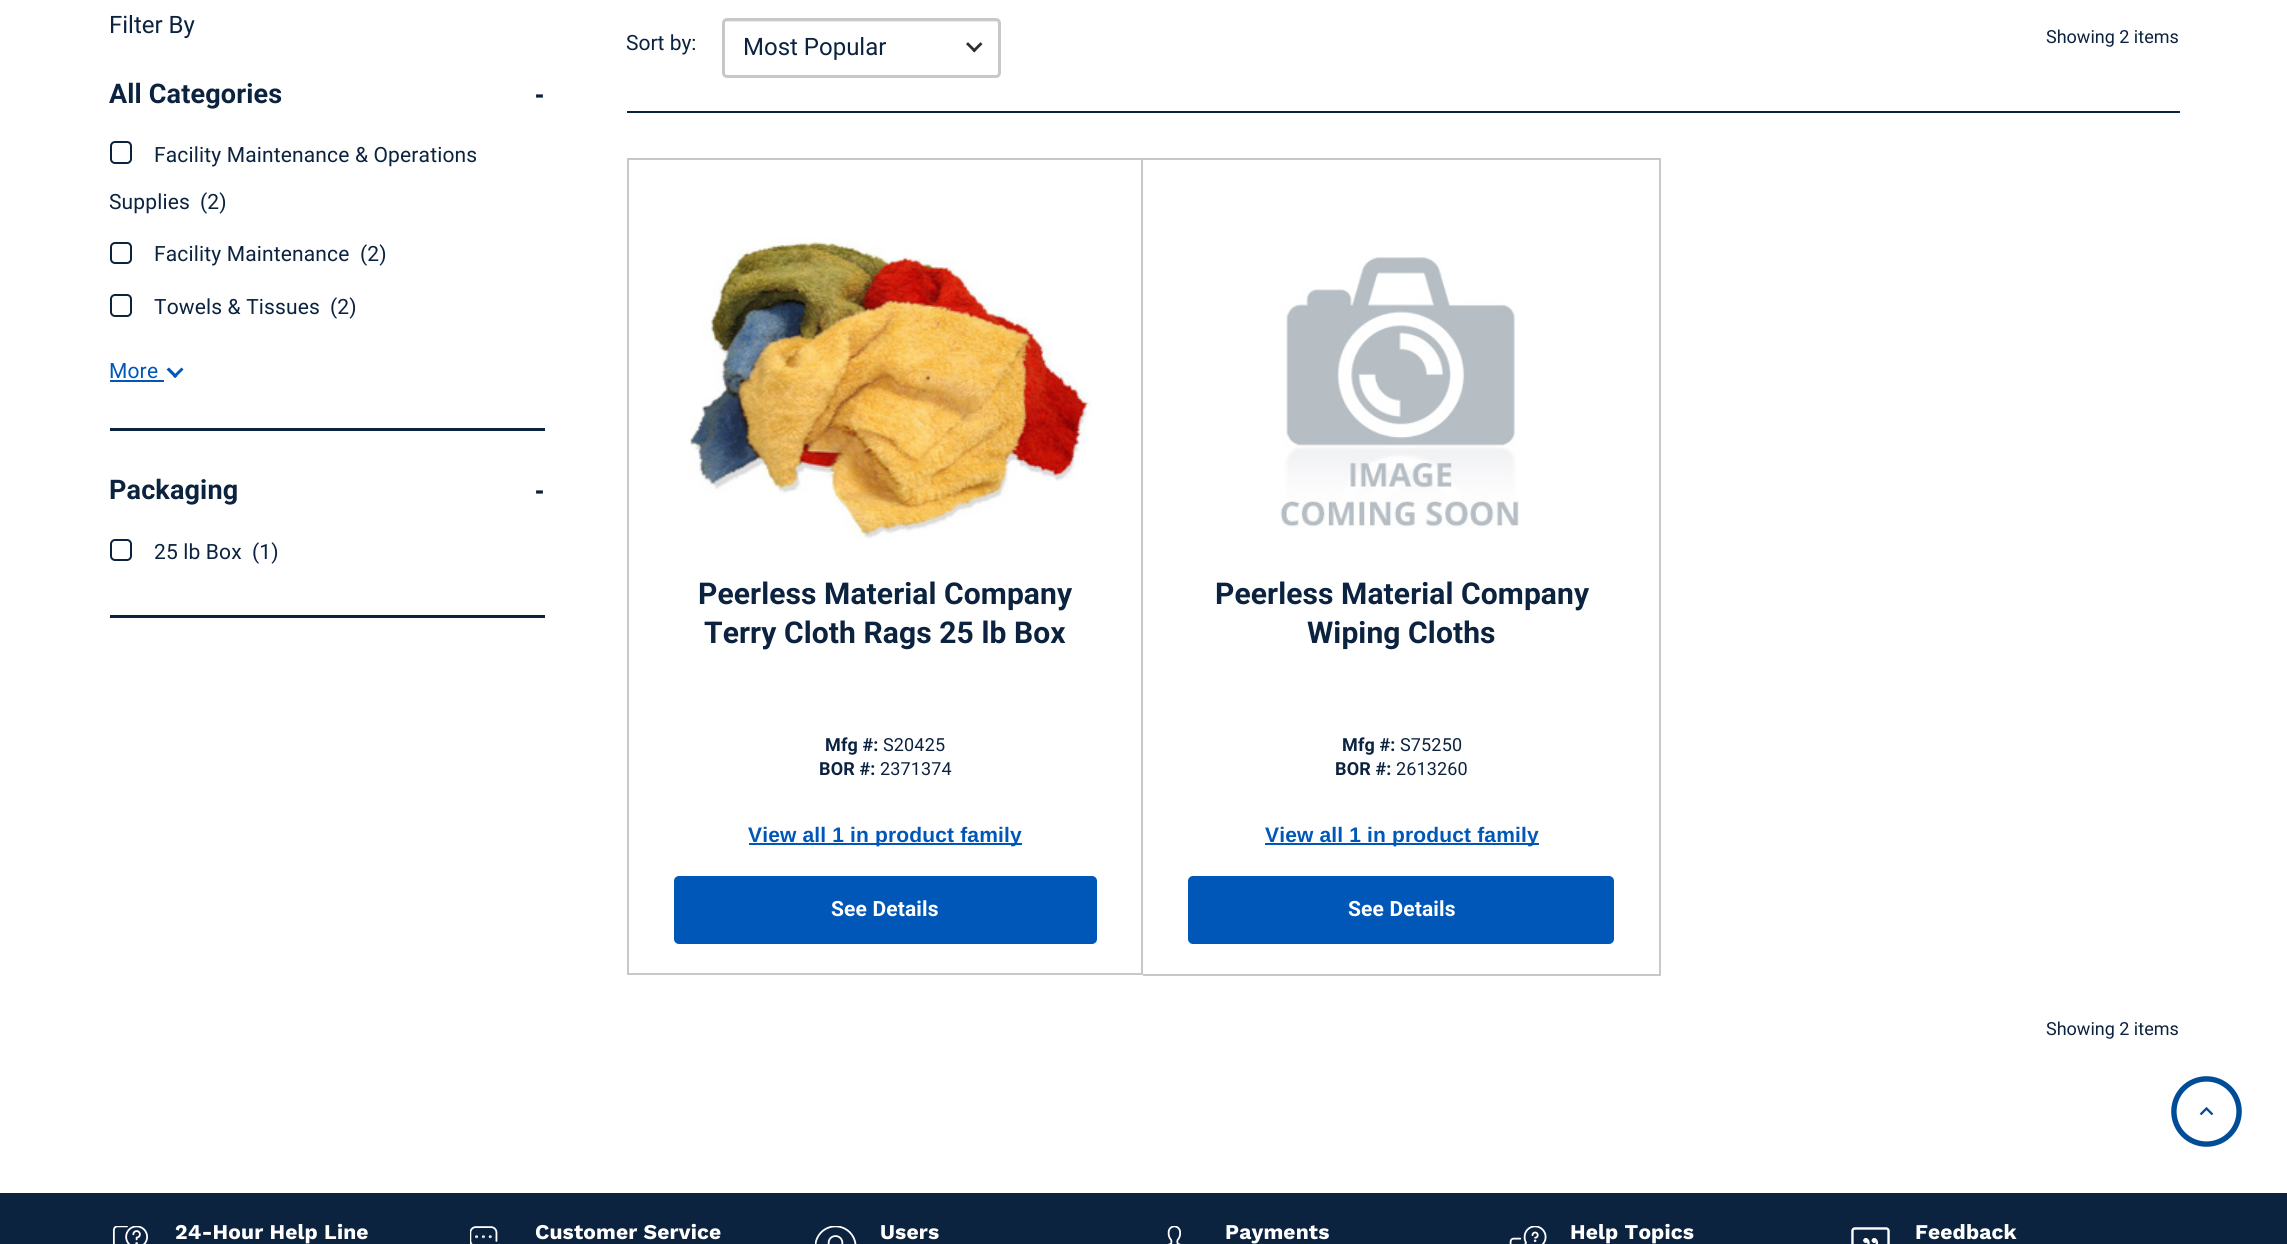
import math
import cairocffi as cairo

surface = cairo.ImageSurface(cairo.FORMAT_RGB24, 2287, 1244)
ctx = cairo.Context(surface)
options = cairo.FontOptions()
options.set_hint_metrics(cairo.HINT_METRICS_OFF)
options.set_hint_style(cairo.HINT_STYLE_NONE)
ctx.set_font_options(options)
ctx.set_miter_limit(4)


def rgb(r, g, b):
    ctx.set_source_rgb(r / 255, g / 255, b / 255)


def face(family, size, italic, bold):
    ctx.select_font_face(family, cairo.FONT_SLANT_ITALIC if italic else cairo.FONT_SLANT_NORMAL, cairo.FONT_WEIGHT_BOLD if bold else cairo.FONT_WEIGHT_NORMAL)
    ctx.set_font_size(size)


def label(x, y, s):
    ctx.move_to(x, y)
    ctx.show_text(s)


def tracked(x, y, s, letter, word):
    ctx.move_to(x, y)
    for ch in s:
        ctx.show_text(ch)
        ctx.rel_move_to(letter + word * (ch == ' '), 0)


def rect(x, y, w, h):
    ctx.rectangle(x, y, w, h)
    ctx.fill()


def rrect(x, y, w, h, r):
    ctx.new_sub_path()
    for i, (u, v) in enumerate([(x + w - r, y + h - r), (x + r, y + h - r), (x + r, y + r), (x + w - r, y + r)]):
        ctx.arc(u, v, r, i * math.pi / 2, (i + 1) * math.pi / 2)
    ctx.close_path()


def image(path, x, y, w, h):
    ctx.save()
    ctx.set_source_surface(cairo.ImageSurface.create_from_png(path), x, y)
    ctx.rectangle(x, y, w, h)
    ctx.fill()
    ctx.restore()


rgb(255, 255, 255)
ctx.paint()
face('Roboto', 24, 0, 0)
rgb(12, 35, 64)
label(109, 33, 'Filter By')
face('Roboto', 27, 0, 1)
tracked(109, 103, 'All Categories', 0.15, 0)
face('Liberation Sans', 27, 0, 1)
tracked(535, 103, '-', 0.15, 0)
rrect(111, 142, 20, 21, 4)
ctx.stroke()
face('Roboto', 21, 0, 0)
tracked(154, 162, 'Facility Maintenance & Operations', 0.15, 0)
tracked(109, 209, 'Supplies', 0.15, 0)
tracked(200, 209, '(2)', 0.1, 0)
rrect(111, 243, 20, 20, 4)
ctx.stroke()
tracked(154, 261, 'Facility Maintenance', 0.15, 0)
tracked(360, 261, '(2)', 0.1, 0)
rrect(111, 295, 20, 21, 4)
ctx.stroke()
tracked(154, 314, 'Towels & Tissues', 0.15, 0)
tracked(330, 314, '(2)', 0.1, 0)
rgb(0, 87, 184)
tracked(109, 378, 'More', 0.15, 0)
rect(110, 380, 54, 2)
ctx.new_path()
ctx.move_to(181.5, 367.5)
ctx.line_to(183.5, 369.5)
ctx.line_to(175, 378)
ctx.line_to(173, 376)
ctx.close_path()
ctx.fill()
ctx.new_path()
ctx.move_to(169, 367.5)
ctx.line_to(177.5, 376)
ctx.line_to(175, 378)
ctx.line_to(166.5, 369.5)
ctx.close_path()
ctx.fill()
rgb(12, 35, 64)
rect(110, 428, 435, 3)
face('Roboto', 27, 0, 1)
tracked(109, 499, 'Packaging', 0.15, 0)
face('Liberation Sans', 27, 0, 1)
tracked(535, 499, '-', 0.15, 0)
rrect(111, 540, 20, 20, 4)
ctx.stroke()
face('Roboto', 21, 0, 0)
tracked(154, 559, '25 lb Box', 0.15, 0)
tracked(252, 559, '(1)', 0.1, 0)
rect(110, 615, 435, 3)
rect(627, 111, 1553, 2)
label(626, 50, 'Sort by:')
image('image0.png', 966, 42, 17, 11)
rgb(236, 236, 236)
ctx.new_path()
ctx.move_to(726, 22)
ctx.line_to(996, 22)
ctx.curve_to(997, 22, 998, 23, 998, 24)
ctx.line_to(998, 22)
ctx.curve_to(998, 22, 997, 21, 996, 21)
ctx.line_to(726, 21)
ctx.curve_to(726, 21, 725, 22, 725, 22)
ctx.close_path()
ctx.fill()
rrect(723.5, 19.5, 276, 57, 3.5)
rgb(200, 201, 199)
ctx.set_line_width(3)
ctx.stroke()
face('Roboto', 24, 0, 0)
rgb(12, 35, 64)
label(743, 55, 'Most Popular')
face('Roboto', 18, 0, 0)
label(2046, 43, 'Showing 2 items')
ctx.rectangle(628, 159, 514, 815)
rgb(200, 201, 199)
ctx.set_line_width(2)
ctx.stroke()
image('image1.png', 689, 238, 404, 301)
face('Roboto', 30, 0, 1)
rgb(12, 35, 64)
tracked(698, 604, 'Peerless Material Company', 0.1, 0)
tracked(704, 643, 'Terry Cloth Rags 25 lb Box', 0.1, 0)
face('Roboto', 18, 0, 1)
tracked(825, 751, 'Mfg #:', 0.15, 0)
face('Roboto', 18, 0, 0)
tracked(883, 751, 'S20425', 0.15, 0)
face('Roboto', 18, 0, 1)
tracked(819, 775, 'BOR #:', 0.15, 0)
face('Roboto', 18, 0, 0)
tracked(880, 775, '2371374', 0.15, 0)
rgb(0, 87, 184)
rect(749, 843, 273, 2)
face('Liberation Sans', 21, 0, 1)
tracked(748, 842, 'View all 1 in product family', 0.15, 0)
rrect(674, 876, 423, 68, 5)
ctx.fill()
face('Roboto', 21, 0, 1)
rgb(255, 255, 255)
tracked(831, 916, 'See Details', 0.15, 0)
rgb(200, 201, 199)
rect(1143, 158, 518, 2)
rect(1659, 158, 2, 817)
rect(1143, 974, 518, 2)
image('image2.png', 1280, 257, 239, 271)
face('Roboto', 30, 0, 1)
rgb(12, 35, 64)
tracked(1215, 604, 'Peerless Material Company', 0.1, 0)
tracked(1307, 643, 'Wiping Cloths', 0.1, 0)
face('Roboto', 18, 0, 1)
tracked(1342, 751, 'Mfg #:', 0.15, 0)
face('Roboto', 18, 0, 0)
tracked(1400, 751, 'S75250', 0.15, 0)
face('Roboto', 18, 0, 1)
tracked(1335, 775, 'BOR #:', 0.15, 0)
face('Roboto', 18, 0, 0)
tracked(1396, 775, '2613260', 0.15, 0)
rgb(0, 87, 184)
rect(1265, 843, 274, 2)
face('Liberation Sans', 21, 0, 1)
tracked(1265, 842, 'View all 1 in product family', 0.15, 0)
rrect(1188, 876, 426, 68, 5)
ctx.fill()
face('Roboto', 21, 0, 1)
rgb(255, 255, 255)
tracked(1348, 916, 'See Details', 0.15, 0)
face('Roboto', 18, 0, 0)
rgb(12, 35, 64)
label(2046, 1035, 'Showing 2 items')
image('image3.png', 2171, 1076, 71, 71)
rect(0, 1193, 2287, 51)
image('image4.png', 112, 1226, 36, 18)
face('Work Sans', 21, 0, 1)
rgb(255, 255, 255)
tracked(175, 1239, '24-Hour Help Line', 0.15, 0)
image('image5.png', 470, 1226, 30, 18)
tracked(535, 1239, 'Customer Service', 0.15, 0)
image('image6.png', 815, 1226, 42, 18)
tracked(880, 1239, 'Users', 0.15, 0)
image('image7.png', 1167, 1226, 14, 18)
tracked(1225, 1239, 'Payments', 0.15, 0)
image('image8.png', 1509, 1226, 38, 18)
tracked(1570, 1239, 'Help Topics', 0.15, 0)
image('image9.png', 1851, 1227, 39, 17)
tracked(1915, 1239, 'Feedback', 0.15, 0)
surface.write_to_png('render.png')
